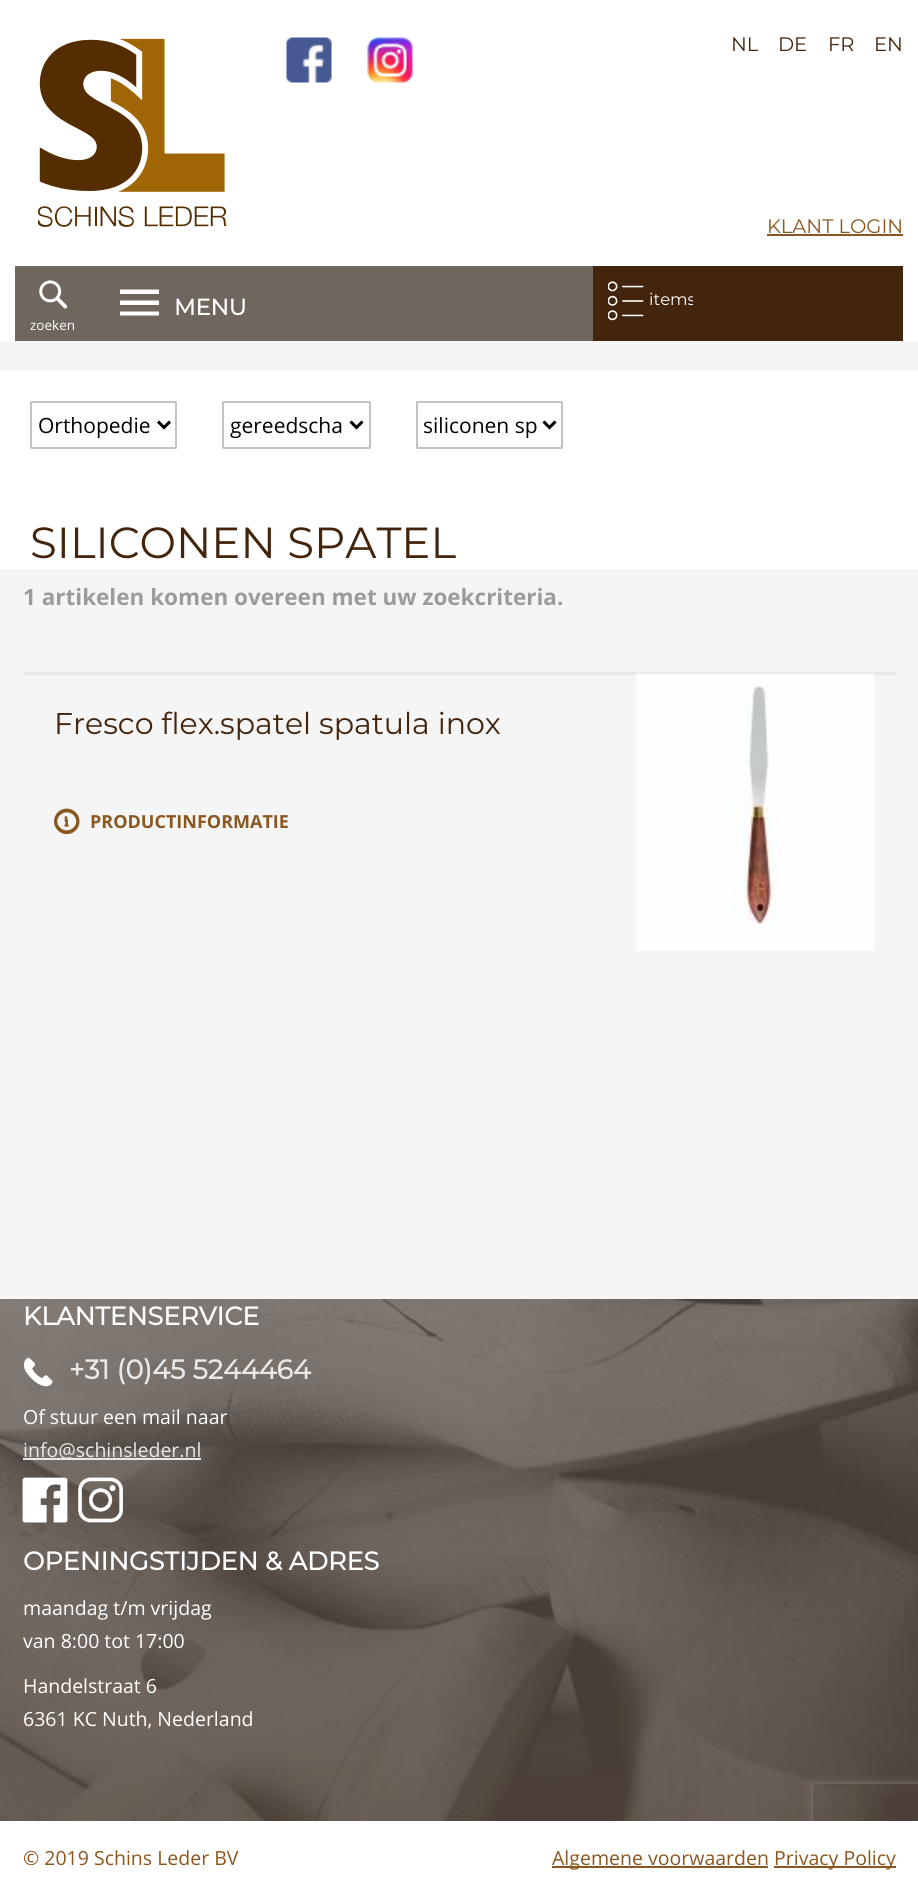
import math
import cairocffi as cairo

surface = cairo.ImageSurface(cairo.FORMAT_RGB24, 918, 1894)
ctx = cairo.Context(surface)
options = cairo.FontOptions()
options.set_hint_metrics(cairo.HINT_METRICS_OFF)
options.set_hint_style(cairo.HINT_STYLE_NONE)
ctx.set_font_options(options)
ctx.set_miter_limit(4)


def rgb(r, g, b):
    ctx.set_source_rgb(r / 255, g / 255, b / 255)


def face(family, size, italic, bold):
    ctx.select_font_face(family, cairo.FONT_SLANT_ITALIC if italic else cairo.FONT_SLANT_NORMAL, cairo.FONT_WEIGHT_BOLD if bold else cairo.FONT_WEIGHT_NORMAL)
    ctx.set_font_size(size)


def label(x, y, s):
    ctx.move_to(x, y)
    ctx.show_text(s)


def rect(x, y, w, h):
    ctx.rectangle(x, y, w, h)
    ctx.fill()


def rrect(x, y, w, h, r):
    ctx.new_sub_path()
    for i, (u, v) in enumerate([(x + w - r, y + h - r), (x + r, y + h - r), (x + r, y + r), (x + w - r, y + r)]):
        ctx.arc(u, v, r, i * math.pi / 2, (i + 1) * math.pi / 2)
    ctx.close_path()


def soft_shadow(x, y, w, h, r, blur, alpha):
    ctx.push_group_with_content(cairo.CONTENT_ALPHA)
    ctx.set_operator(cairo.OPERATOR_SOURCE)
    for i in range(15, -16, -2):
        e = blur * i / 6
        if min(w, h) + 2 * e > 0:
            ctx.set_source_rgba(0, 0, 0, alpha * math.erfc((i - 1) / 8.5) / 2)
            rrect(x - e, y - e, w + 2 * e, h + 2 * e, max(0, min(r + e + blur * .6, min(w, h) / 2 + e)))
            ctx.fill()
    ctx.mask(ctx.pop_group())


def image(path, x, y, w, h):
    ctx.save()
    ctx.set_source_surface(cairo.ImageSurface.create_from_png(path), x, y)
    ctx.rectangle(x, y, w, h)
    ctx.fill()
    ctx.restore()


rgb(245, 245, 245)
ctx.paint()
rgb(255, 255, 255)
rect(0, 0, 918, 341)
image('image0.png', 38, 38, 189, 189)
image('image1.png', 286, 37, 46, 46)
image('image2.png', 367, 37, 46, 46)
face('Montserrat Thin', 19.5, 0, 0)
rgb(67, 36, 12)
label(731, 51, 'NL')
label(778, 51, 'DE')
label(828, 51, 'FR')
label(874, 51, 'EN')
rgb(139, 87, 32)
label(767, 233, 'KLANT LOGIN')
rect(767, 234, 136, 2)
rgb(111, 102, 94)
rect(15, 266, 578, 75)
rgb(255, 255, 255)
ctx.new_path()
ctx.move_to(120, 315.5)
ctx.line_to(120, 311.5)
ctx.line_to(159, 311.5)
ctx.line_to(159, 315.5)
ctx.close_path()
ctx.move_to(120, 305)
ctx.line_to(120, 300.5)
ctx.line_to(159, 300.5)
ctx.line_to(159, 305)
ctx.close_path()
ctx.move_to(120, 294)
ctx.line_to(159, 294)
ctx.line_to(159, 289.5)
ctx.line_to(120, 289.5)
ctx.close_path()
ctx.fill()
face('Montserrat', 22.5, 0, 1)
label(174, 315, 'MENU')
rgb(67, 36, 12)
rect(593, 266, 310, 75)
image('image3.png', 608, 281, 36, 40)
ctx.save()
rrect(650, 275, 43, 36, 3)
ctx.clip()
face('Montserrat Thin', 16.5, 0, 0)
rgb(255, 255, 255)
label(649, 305, 'items')
ctx.restore()
image('image4.png', 39, 280, 29, 29)
face('Open Sans', 13.5, 0, 0)
rgb(255, 255, 255)
label(30, 330, 'zoeken')
rect(0, 371, 918, 198)
rrect(31, 402, 145, 46, 0.5)
rgb(194, 194, 194)
ctx.stroke()
ctx.new_path()
ctx.move_to(158, 421.5)
ctx.line_to(164, 427.5)
ctx.line_to(170, 421.5)
rgb(0, 0, 0)
ctx.set_line_width(3)
ctx.stroke()
face('Open Sans', 21, 0, 0)
label(38, 433, 'Orthopedie')
rrect(223, 402, 147, 46, 0.5)
rgb(194, 194, 194)
ctx.set_line_width(2)
ctx.stroke()
ctx.new_path()
ctx.move_to(350.5, 421.5)
ctx.line_to(356.5, 427.5)
ctx.line_to(362.5, 421.5)
rgb(0, 0, 0)
ctx.set_line_width(3)
ctx.stroke()
label(230, 433, 'gereedscha')
rrect(417, 402, 145, 46, 0.5)
rgb(194, 194, 194)
ctx.set_line_width(2)
ctx.stroke()
ctx.new_path()
ctx.move_to(543.5, 421.5)
ctx.line_to(549.5, 427.5)
ctx.line_to(555.5, 421.5)
rgb(0, 0, 0)
ctx.set_line_width(3)
ctx.stroke()
label(423, 433, 'siliconen sp')
face('Montserrat Thin', 43.5, 0, 0)
rgb(67, 36, 12)
label(30, 558, 'SILICONEN SPATEL')
face('Open Sans', 22.5, 0, 1)
rgb(155, 155, 155)
label(23, 605, '1 artikelen komen overeen met uw zoekcriteria.')
rgb(232, 232, 232)
rrect(23, 672, 873, 3, 1.5)
ctx.fill()
face('Montserrat Thin', 30, 0, 0)
rgb(67, 36, 12)
label(54, 734, 'Fresco flex.spatel spatula inox')
image('image5.png', 54, 808, 26, 27)
face('Open Sans', 18, 0, 1)
rgb(139, 87, 32)
label(90, 828, 'PRODUCTINFORMATIE')
image('image6.png', 636, 673, 239, 278)
image('image7.png', 0, 1299, 918, 522)
face('Montserrat', 25.5, 0, 1)
rgb(255, 255, 255)
label(23, 1325, 'KLANTENSERVICE')
image('image8.png', 23, 1357, 30, 30)
face('Montserrat', 27, 0, 1)
rgb(232, 232, 232)
label(69, 1379, '+31 (0)45 5244464')
face('Open Sans', 19.5, 0, 0)
rgb(255, 255, 255)
label(23, 1424, 'Of stuur een mail naar')
rgb(232, 232, 232)
rect(23, 1458, 178, 2)
label(23, 1457, 'info@schinsleder.nl')
image('image9.png', 22, 1477, 46, 46)
image('image10.png', 78, 1477, 45, 46)
face('Montserrat', 25.5, 0, 1)
rgb(255, 255, 255)
label(23, 1570, 'OPENINGSTIJDEN & ADRES')
face('Open Sans', 19.5, 0, 0)
label(23, 1615, 'maandag t/m vrijdag')
label(23, 1648, 'van 8:00 tot 17:00')
label(23, 1693, 'Handelstraat 6')
label(23, 1726, '6361 KC Nuth, Nederland')
ctx.save()
ctx.set_fill_rule(cairo.FILL_RULE_EVEN_ODD)
ctx.new_path()
ctx.move_to(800, 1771)
ctx.line_to(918, 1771)
ctx.line_to(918, 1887)
ctx.line_to(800, 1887)
ctx.close_path()
ctx.move_to(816, 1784)
ctx.line_to(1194, 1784)
ctx.curve_to(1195.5, 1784, 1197, 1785.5, 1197, 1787)
ctx.line_to(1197, 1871)
ctx.curve_to(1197, 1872.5, 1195.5, 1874, 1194, 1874)
ctx.line_to(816, 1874)
ctx.curve_to(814.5, 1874, 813, 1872.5, 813, 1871)
ctx.line_to(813, 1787)
ctx.curve_to(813, 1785.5, 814.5, 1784, 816, 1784)
ctx.close_path()
ctx.clip()
rgb(128, 128, 128)
soft_shadow(813, 1784, 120, 90, 3, 4, 1)
ctx.restore()
rect(0, 1821, 918, 73)
rgb(139, 87, 32)
label(23, 1865, '© 2019 Schins Leder BV')
rect(552, 1866, 216, 2)
label(552, 1865, 'Algemene voorwaarden')
rect(774, 1866, 122, 2)
label(774, 1865, 'Privacy Policy')
surface.write_to_png('render.png')
